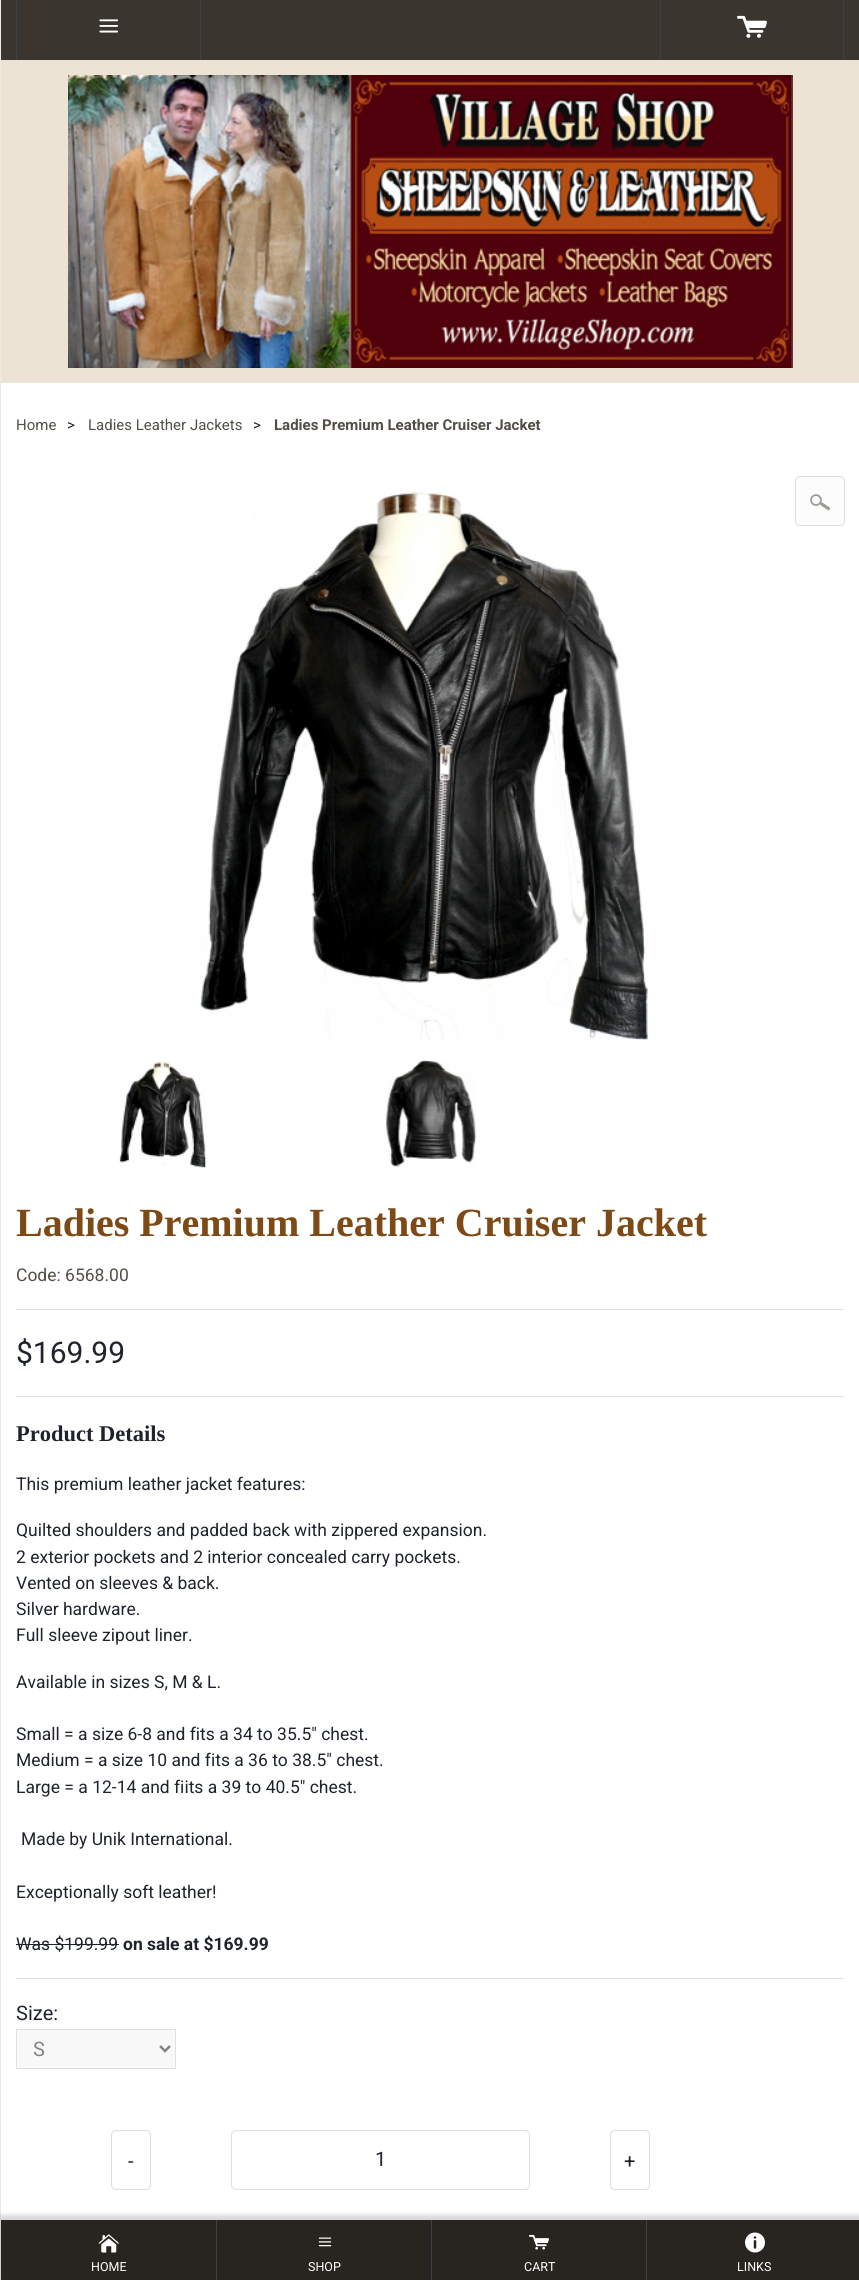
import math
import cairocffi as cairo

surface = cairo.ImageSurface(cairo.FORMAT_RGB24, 859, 2280)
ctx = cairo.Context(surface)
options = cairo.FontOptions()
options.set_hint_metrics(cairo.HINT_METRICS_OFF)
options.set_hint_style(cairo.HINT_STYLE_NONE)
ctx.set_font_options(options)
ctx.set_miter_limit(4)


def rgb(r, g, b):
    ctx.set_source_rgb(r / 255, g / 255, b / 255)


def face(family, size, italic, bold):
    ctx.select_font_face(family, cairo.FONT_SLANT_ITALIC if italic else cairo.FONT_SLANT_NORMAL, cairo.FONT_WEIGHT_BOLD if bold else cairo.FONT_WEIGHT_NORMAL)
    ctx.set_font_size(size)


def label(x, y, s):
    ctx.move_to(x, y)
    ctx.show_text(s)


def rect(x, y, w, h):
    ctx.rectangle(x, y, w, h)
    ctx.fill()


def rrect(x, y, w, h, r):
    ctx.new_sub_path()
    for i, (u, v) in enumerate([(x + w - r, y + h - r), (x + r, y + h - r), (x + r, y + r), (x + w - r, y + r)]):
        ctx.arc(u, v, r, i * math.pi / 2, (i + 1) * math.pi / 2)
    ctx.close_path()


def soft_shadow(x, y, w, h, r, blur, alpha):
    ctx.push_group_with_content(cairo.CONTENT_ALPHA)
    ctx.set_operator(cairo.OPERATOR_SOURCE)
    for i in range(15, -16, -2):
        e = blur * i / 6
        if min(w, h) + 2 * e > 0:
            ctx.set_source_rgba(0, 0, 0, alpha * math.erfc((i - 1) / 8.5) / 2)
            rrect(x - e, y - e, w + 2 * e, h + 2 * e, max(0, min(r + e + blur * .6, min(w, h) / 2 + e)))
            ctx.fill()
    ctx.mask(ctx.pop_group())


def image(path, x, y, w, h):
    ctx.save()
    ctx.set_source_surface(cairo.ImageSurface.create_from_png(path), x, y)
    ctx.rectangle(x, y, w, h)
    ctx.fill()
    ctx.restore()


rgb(235, 235, 235)
ctx.paint()
rgb(236, 227, 213)
rect(1, 60, 858, 323)
rgb(59, 53, 47)
rect(1, 0, 858, 60)
rgb(56, 65, 78)
rect(200, 0, 1, 60)
rect(16, 0, 1, 60)
image('image0.png', 99, 19, 20, 14)
rect(843, 0, 1, 60)
rect(660, 0, 1, 60)
face('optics', 30, 0, 0)
rgb(255, 255, 255)
label(737, 40, '0')
image('image1.png', 68, 75, 725, 293)
rect(1, 383, 858, 1837)
face('Roboto', 15, 0, 0)
rgb(83, 79, 71)
label(16, 430, 'Home')
rgb(31, 36, 44)
label(67, 430, '>')
rgb(83, 79, 71)
label(88, 430, 'Ladies Leather Jackets')
rgb(31, 36, 44)
label(253, 430, '>')
face('Roboto', 15, 0, 1)
rgb(83, 79, 71)
label(274, 430, 'Ladies Premium Leather Cruiser Jacket')
image('image2.png', 199, 477, 450, 563)
rgb(252, 252, 252)
rrect(795.5, 476.5, 49, 49, 4.5)
ctx.fill_preserve()
rgb(221, 221, 221)
ctx.set_line_width(1)
ctx.stroke()
face('optics', 20, 0, 0)
rgb(156, 155, 149)
label(810, 511, '1')
image('image3.png', 119, 1061, 88, 107)
image('image4.png', 385, 1060, 92, 108)
face('Liberation Serif', 40, 0, 1)
rgb(125, 73, 20)
label(16, 1236, 'Ladies Premium Leather Cruiser Jacket')
face('Roboto', 17.5, 0, 0)
rgb(83, 79, 71)
label(16, 1281, 'Code: 6568.00')
rgb(223, 225, 225)
rect(16, 1309, 828, 1)
face('Roboto', 30, 0, 0)
rgb(31, 36, 44)
label(16, 1363, '$169.99')
rgb(223, 225, 225)
rect(16, 1396, 828, 1)
face('Liberation Serif', 22.5, 0, 1)
rgb(31, 36, 44)
label(16, 1441, 'Product Details')
face('Roboto', 17.5, 0, 0)
label(16, 1490, 'This premium leather jacket features:')
label(16, 1536, 'Quilted shoulders and padded back with zippered expansion.')
label(16, 1563, '2 exterior pockets and 2 interior concealed carry pockets.')
label(16, 1589, 'Vented on sleeves & back.')
label(16, 1615, 'Silver hardware.')
label(16, 1641, 'Full sleeve zipout liner.')
label(16, 1688, 'Available in sizes S, M & L.')
label(16, 1740, 'Small = a size 6-8 and fits a 34 to 35.5" chest.')
label(16, 1766, 'Medium = a size 10 and fits a 36 to 38.5" chest.')
label(16, 1793, 'Large = a 12-14 and fiits a 39 to 40.5" chest.')
label(21, 1845, 'Made by Unik International.')
label(16, 1898, 'Exceptionally soft leather!')
label(16, 1950, 'Was $199.99')
rect(16, 1944, 103, 1)
face('Roboto', 17.5, 0, 1)
label(123, 1950, 'on sale at $169.99')
rgb(223, 225, 225)
rect(16, 1978, 828, 1)
face('Roboto', 20, 0, 0)
rgb(31, 36, 44)
label(16, 2020, 'Size:')
rgb(248, 248, 248)
ctx.rectangle(16.5, 2029.5, 159, 39)
ctx.fill_preserve()
rgb(223, 225, 225)
ctx.stroke()
ctx.new_path()
ctx.move_to(160, 2046)
ctx.line_to(165, 2051)
ctx.line_to(170, 2046)
rgb(131, 131, 131)
ctx.set_line_width(2.5)
ctx.stroke()
label(33, 2056, 'S')
rrect(111.5, 2130.5, 39, 59, 4.5)
rgb(221, 221, 221)
ctx.set_line_width(1)
ctx.stroke()
rgb(31, 36, 44)
label(128, 2168, '-')
rrect(231.5, 2130.5, 298, 59, 4.5)
rgb(223, 225, 225)
ctx.stroke()
rgb(31, 36, 44)
label(375, 2166, '1')
rrect(610.5, 2130.5, 39, 59, 4.5)
rgb(221, 221, 221)
ctx.stroke()
rgb(31, 36, 44)
label(624, 2168, '+')
rgb(51, 51, 51)
soft_shadow(-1, 2215, 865, 65, 0, 2.5, 0.2)
rgb(40, 36, 31)
rect(1, 2220, 858, 60)
image('image5.png', 98, 2234, 21, 19)
face('Roboto', 12.5, 0, 0)
rgb(255, 255, 255)
label(91, 2271, 'HOME')
rgb(56, 65, 78)
rect(216, 2220, 1, 60)
image('image6.png', 318, 2237, 14, 10)
rgb(255, 255, 255)
label(308, 2271, 'SHOP')
rgb(56, 65, 78)
rect(431, 2220, 1, 60)
face('optics', 20, 0, 0)
rgb(255, 255, 255)
label(529, 2251, '0')
face('Roboto', 12.5, 0, 0)
label(524, 2271, 'CART')
rgb(56, 65, 78)
rect(646, 2220, 1, 60)
image('image7.png', 745, 2232, 20, 21)
rgb(255, 255, 255)
label(737, 2271, 'LINKS')
surface.write_to_png('render.png')
